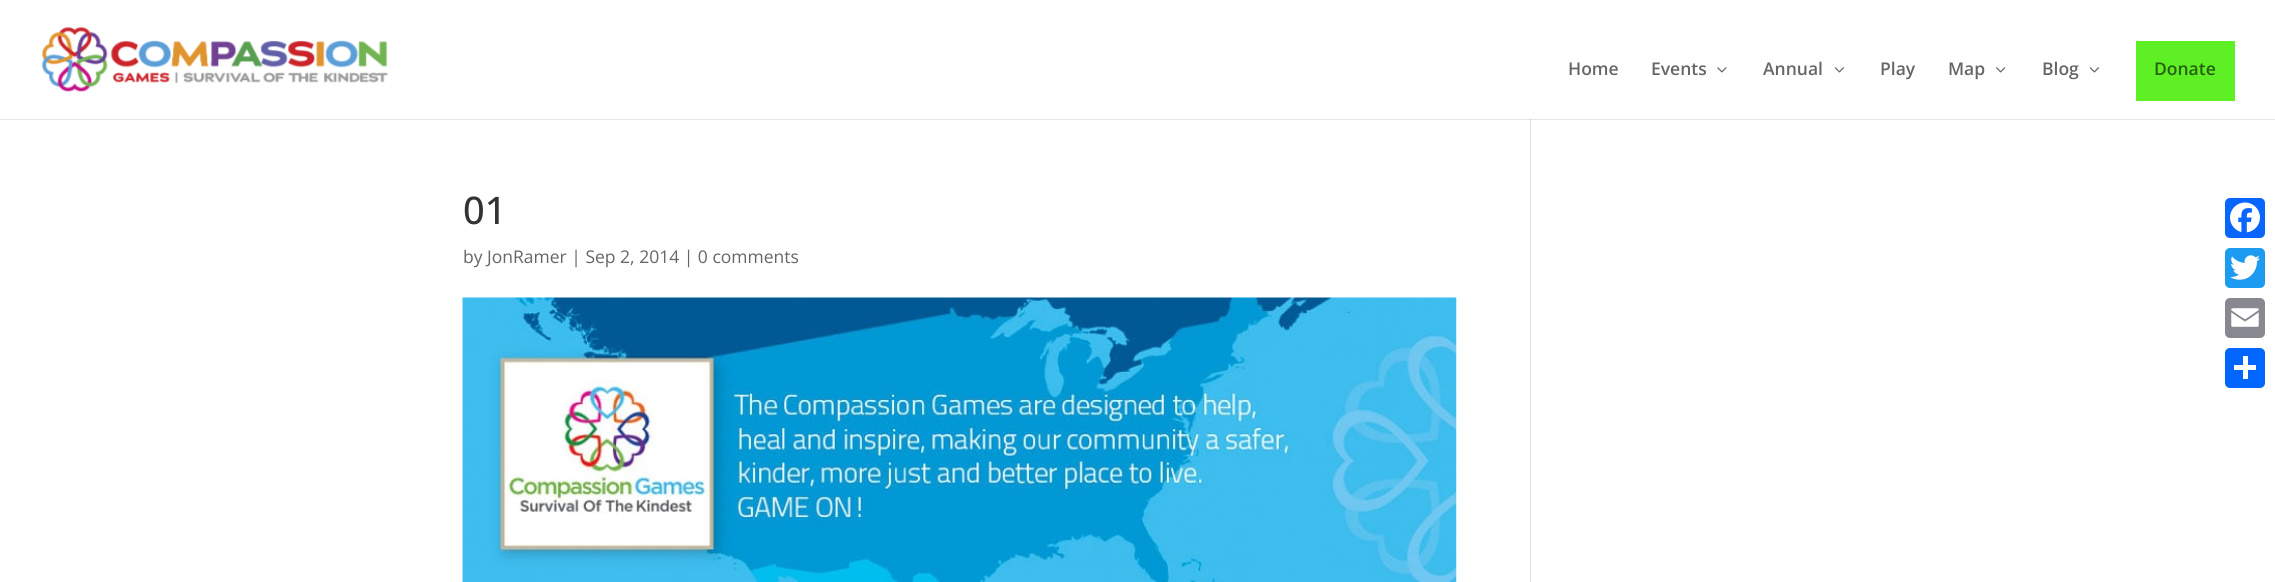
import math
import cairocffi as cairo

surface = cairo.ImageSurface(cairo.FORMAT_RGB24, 2275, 582)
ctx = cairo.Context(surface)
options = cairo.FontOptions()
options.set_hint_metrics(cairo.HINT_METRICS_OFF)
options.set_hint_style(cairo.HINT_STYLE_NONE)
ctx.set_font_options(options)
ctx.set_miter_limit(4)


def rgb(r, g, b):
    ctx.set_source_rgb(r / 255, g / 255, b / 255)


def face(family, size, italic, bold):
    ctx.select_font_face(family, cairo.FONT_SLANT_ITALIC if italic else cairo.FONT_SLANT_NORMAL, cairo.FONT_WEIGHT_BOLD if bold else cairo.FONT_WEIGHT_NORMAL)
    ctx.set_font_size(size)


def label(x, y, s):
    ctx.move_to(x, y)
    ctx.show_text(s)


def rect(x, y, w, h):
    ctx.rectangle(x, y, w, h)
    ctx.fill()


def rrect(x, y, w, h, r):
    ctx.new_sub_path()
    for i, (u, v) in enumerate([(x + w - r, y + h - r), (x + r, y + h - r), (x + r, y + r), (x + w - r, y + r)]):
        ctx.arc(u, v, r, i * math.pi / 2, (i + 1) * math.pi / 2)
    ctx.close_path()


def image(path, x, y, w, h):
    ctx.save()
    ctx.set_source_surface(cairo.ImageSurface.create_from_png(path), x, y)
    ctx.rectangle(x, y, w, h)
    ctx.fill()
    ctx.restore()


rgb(255, 255, 255)
ctx.paint()
rgb(230, 230, 230)
rect(0, 119, 2275, 1)
image('image0.png', 42, 27, 346, 65)
face('Open Sans SemiBold', 17.5, 0, 0)
rgb(102, 102, 102)
label(1568, 75, 'Home')
label(1651, 75, 'Events')
image('image1.png', 1717, 67, 10, 6)
label(1763, 75, 'Annual')
image('image2.png', 1834, 67, 10, 6)
label(1880, 75, 'Play')
label(1948, 75, 'Map')
image('image3.png', 1996, 67, 10, 6)
label(2042, 75, 'Blog')
image('image2.png', 2089, 67, 10, 6)
rgb(95, 239, 37)
rect(2136, 41, 99, 60)
rgb(38, 96, 15)
label(2154, 75, 'Donate')
face('Open Sans Medium', 38, 0, 0)
rgb(51, 51, 51)
label(463, 224, '01')
face('Open Sans', 17.5, 0, 0)
rgb(102, 102, 102)
label(463, 263, 'by JonRamer | Sep 2, 2014 | 0 comments')
image('image4.png', 462, 297, 995, 285)
rgb(226, 226, 226)
rect(1530, 119, 1, 463)
rgb(203, 203, 203)
rect(1530, 119, 1, 1)
rgb(8, 102, 255)
rrect(2225, 198, 40, 40, 5)
ctx.fill()
image('image5.png', 2230, 202, 30, 31)
rgb(29, 155, 240)
rrect(2225, 248, 40, 40, 5)
ctx.fill()
image('image6.png', 2230, 255, 30, 25)
rgb(136, 137, 144)
rrect(2225, 298, 40, 40, 5)
ctx.fill()
image('image7.png', 2231, 308, 28, 19)
rgb(1, 102, 255)
rrect(2225, 348, 40, 40, 5)
ctx.fill()
rgb(255, 255, 255)
rect(2243, 356, 5, 23)
rect(2234, 365, 22, 5)
surface.write_to_png('render.png')
